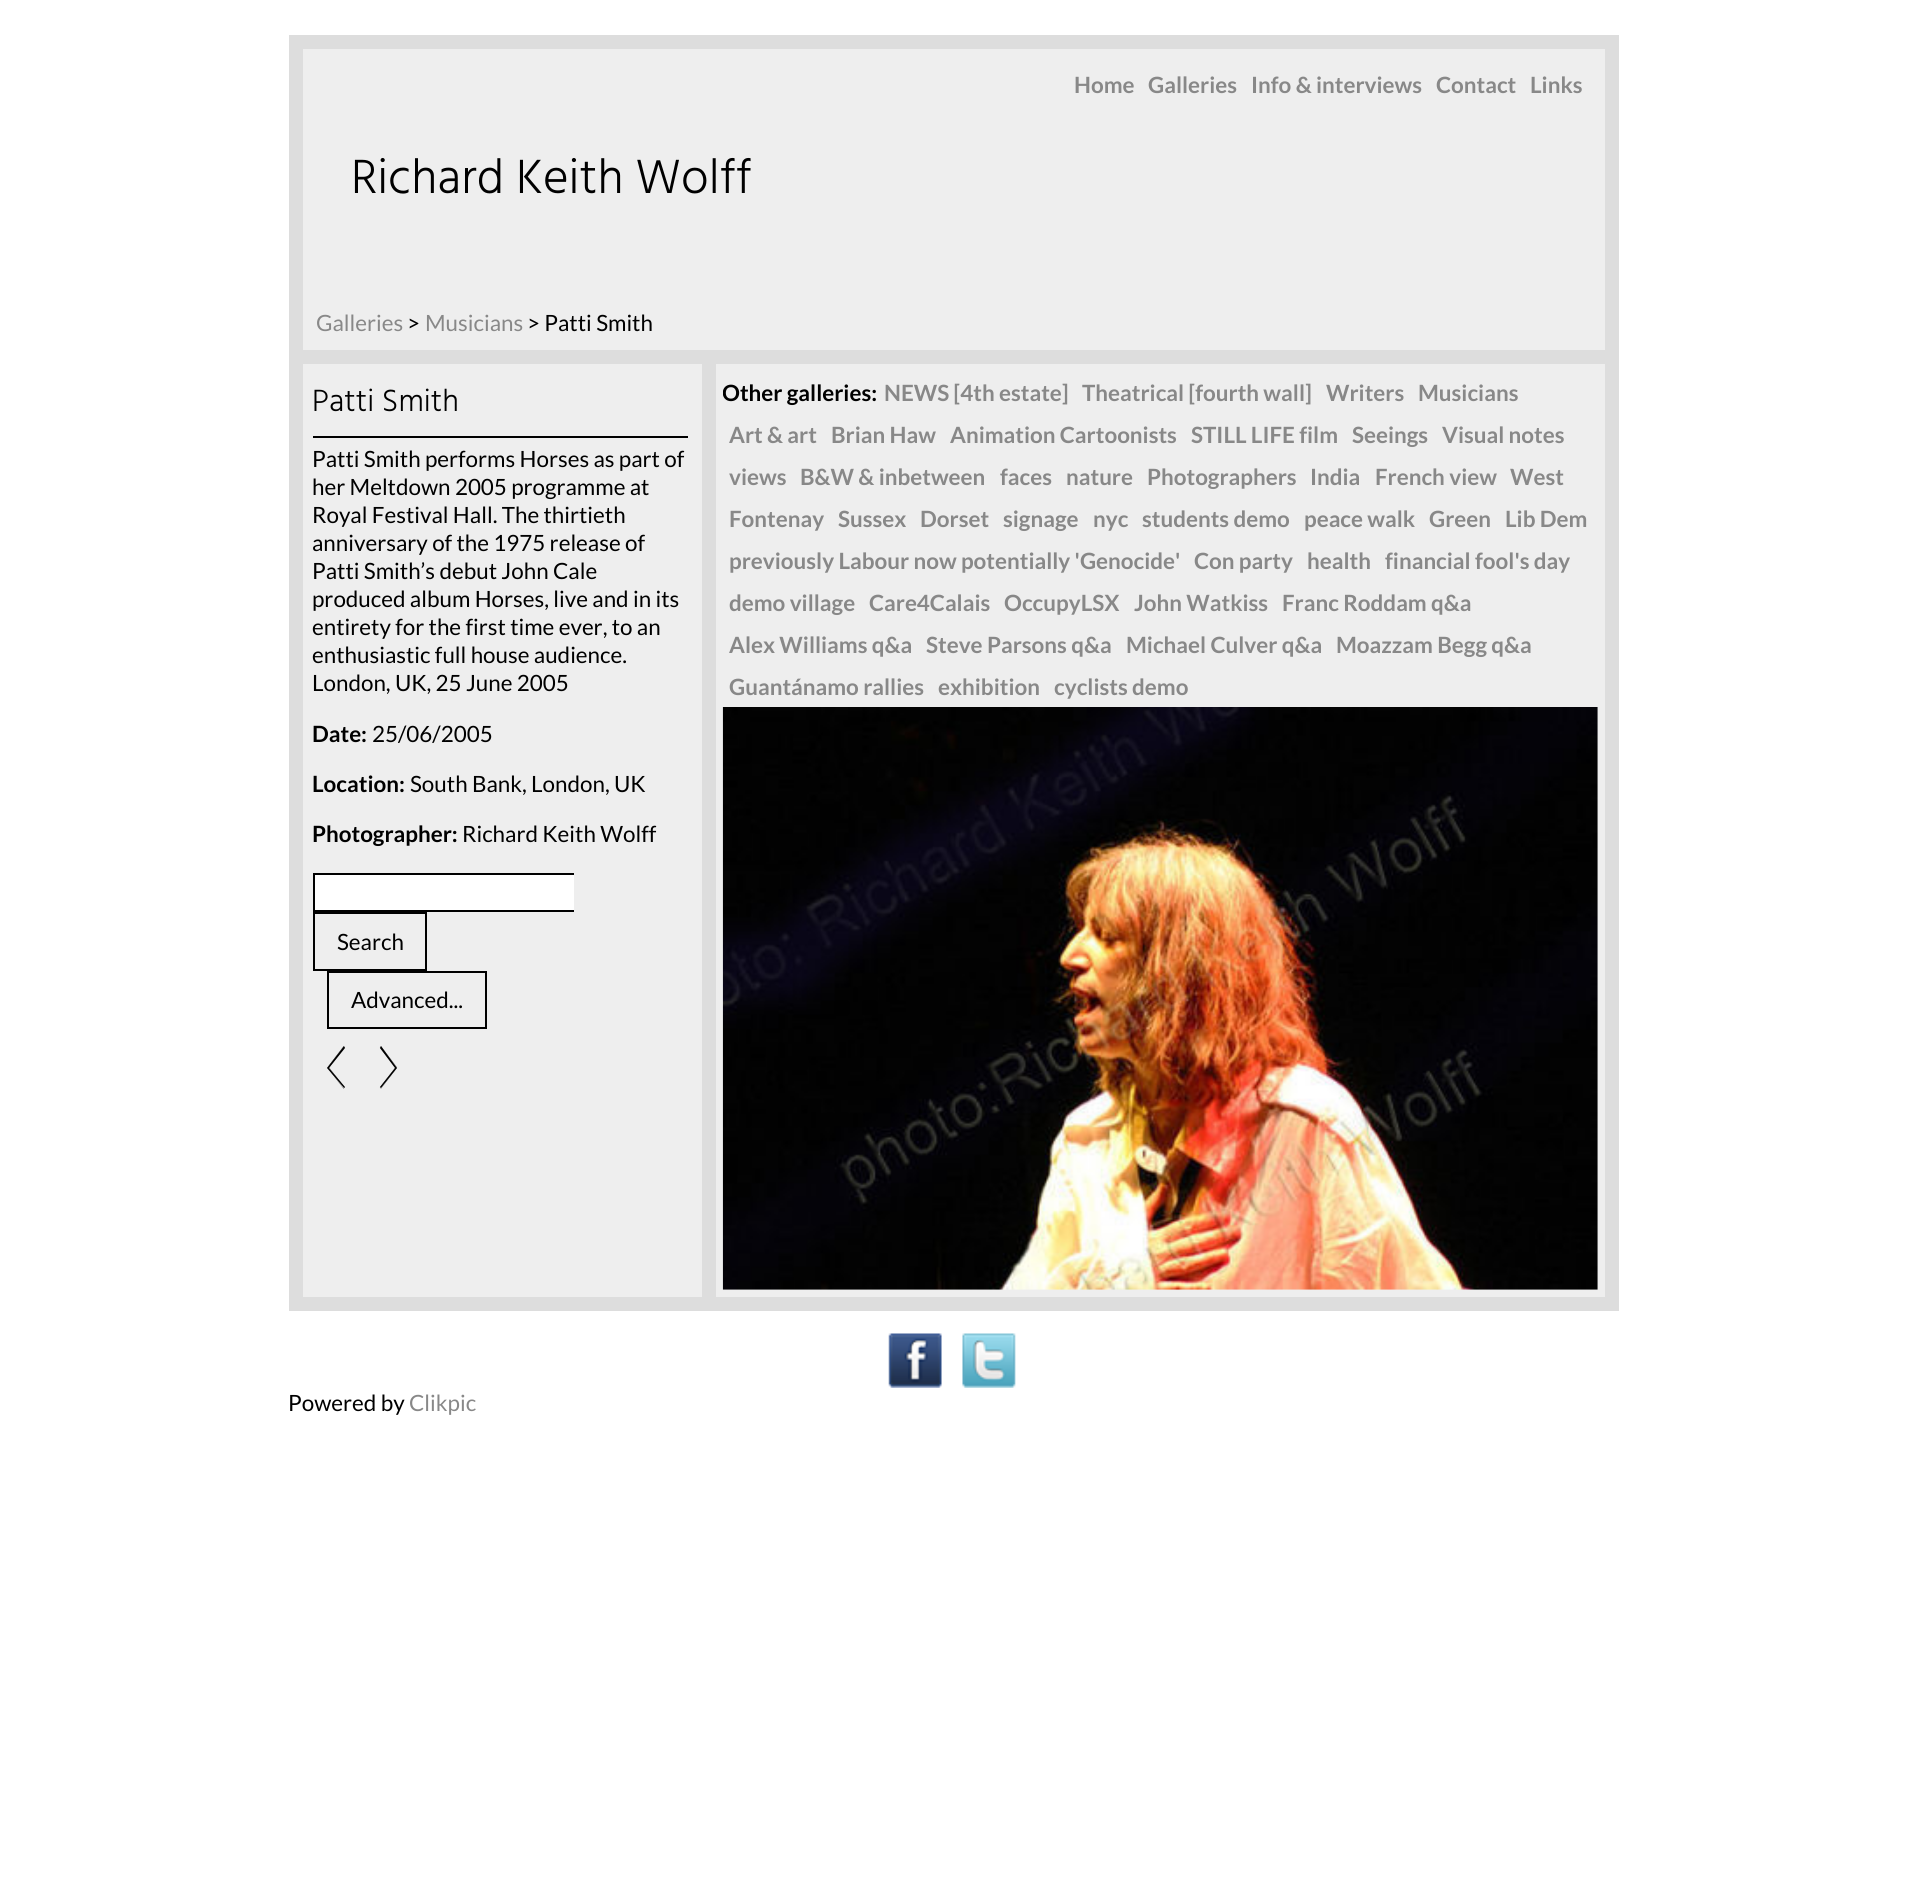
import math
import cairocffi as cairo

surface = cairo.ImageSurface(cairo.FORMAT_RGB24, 1905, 1878)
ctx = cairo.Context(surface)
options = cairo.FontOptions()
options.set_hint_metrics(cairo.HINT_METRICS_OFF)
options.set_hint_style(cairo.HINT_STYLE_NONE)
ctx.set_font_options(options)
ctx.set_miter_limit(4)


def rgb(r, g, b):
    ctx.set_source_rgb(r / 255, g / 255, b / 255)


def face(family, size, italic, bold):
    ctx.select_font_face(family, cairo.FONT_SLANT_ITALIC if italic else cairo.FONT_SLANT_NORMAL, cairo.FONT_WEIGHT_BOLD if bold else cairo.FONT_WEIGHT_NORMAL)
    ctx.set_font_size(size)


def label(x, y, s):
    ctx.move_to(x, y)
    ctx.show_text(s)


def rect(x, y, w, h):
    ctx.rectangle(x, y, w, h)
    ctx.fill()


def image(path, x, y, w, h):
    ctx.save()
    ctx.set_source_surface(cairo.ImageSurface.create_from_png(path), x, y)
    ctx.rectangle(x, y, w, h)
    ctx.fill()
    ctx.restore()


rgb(255, 255, 255)
ctx.paint()
rgb(238, 238, 238)
rect(303, 49, 1302, 301)
rgb(221, 221, 221)
rect(303, 35, 1302, 14)
rect(1605, 35, 14, 1262)
rect(289, 35, 14, 1276)
face('Lato', 22.4, 0, 1)
rgb(136, 136, 136)
label(1074, 93, 'Home')
label(1148, 93, 'Galleries')
label(1251, 93, 'Info & interviews')
label(1436, 93, 'Contact')
label(1530, 93, 'Links')
face('Hind Light', 49.25, 0, 0)
rgb(0, 0, 0)
label(351, 193, 'Richard Keith Wolff')
face('Lato', 22.4, 0, 0)
rgb(136, 136, 136)
label(316, 331, 'Galleries')
rgb(0, 0, 0)
label(407, 331, '>')
rgb(136, 136, 136)
label(425, 331, 'Musicians')
rgb(0, 0, 0)
label(527, 331, '> Patti Smith')
rgb(238, 238, 238)
rect(303, 364, 1302, 933)
rgb(221, 221, 221)
rect(303, 350, 399, 14)
rect(702, 350, 14, 947)
rect(303, 1297, 1316, 14)
rgb(0, 0, 0)
rect(313, 436, 375, 2)
face('Hind Light', 31.5, 0, 0)
label(312, 411, 'Patti Smith')
face('Lato', 22.4, 0, 0)
label(312, 467, 'Patti Smith performs Horses as part of')
label(312, 495, 'her Meltdown 2005 programme at')
label(312, 523, 'Royal Festival Hall. The thirtieth')
label(312, 551, 'anniversary of the 1975 release of')
label(312, 579, 'Patti Smith’s debut John Cale')
label(312, 607, 'produced album Horses, live and in its')
label(312, 635, 'entirety for the first time ever, to an')
label(312, 663, 'enthusiastic full house audience.')
label(312, 691, 'London, UK, 25 June 2005')
face('Lato', 22.4, 0, 1)
label(312, 742, 'Date:')
face('Lato', 22.4, 0, 0)
label(372, 742, '25/06/2005')
face('Lato', 22.4, 0, 1)
label(312, 792, 'Location:')
face('Lato', 22.4, 0, 0)
label(410, 792, 'South Bank, London, UK')
face('Lato', 22.4, 0, 1)
label(312, 842, 'Photographer:')
face('Lato', 22.4, 0, 0)
label(462, 842, 'Richard Keith Wolff')
rgb(255, 255, 255)
rect(315, 875, 259, 35)
ctx.save()
ctx.rectangle(313, 870, 261, 163)
ctx.clip()
ctx.rectangle(314, 874, 268, 37)
rgb(0, 0, 0)
ctx.stroke()
ctx.restore()
ctx.rectangle(314, 913, 112, 57)
rgb(0, 0, 0)
ctx.stroke()
label(337, 950, 'Search')
ctx.rectangle(328, 972, 158, 56)
ctx.stroke()
label(351, 1008, 'Advanced...')
ctx.new_path()
ctx.move_to(344, 1088)
ctx.line_to(327, 1068)
ctx.line_to(344, 1046)
ctx.line_to(345, 1048)
ctx.line_to(329, 1068)
ctx.line_to(345, 1087)
ctx.close_path()
ctx.fill()
ctx.new_path()
ctx.move_to(343.5, 1088.5)
ctx.line_to(327.5, 1067.5)
ctx.line_to(343.5, 1046.5)
ctx.line_to(344.5, 1047.5)
ctx.line_to(329, 1067.5)
ctx.line_to(344.5, 1087.5)
ctx.close_path()
ctx.set_line_width(0.2)
ctx.stroke()
ctx.new_path()
ctx.move_to(381, 1088)
ctx.line_to(380, 1087)
ctx.line_to(395, 1068)
ctx.line_to(380, 1048)
ctx.line_to(381, 1046)
ctx.line_to(397, 1068)
ctx.close_path()
ctx.fill()
ctx.new_path()
ctx.move_to(381, 1088.5)
ctx.line_to(380, 1087.5)
ctx.line_to(395.5, 1067.5)
ctx.line_to(380, 1047.5)
ctx.line_to(381, 1046.5)
ctx.line_to(397, 1067.5)
ctx.close_path()
ctx.stroke()
rgb(221, 221, 221)
rect(716, 350, 889, 14)
ctx.save()
ctx.rectangle(723, 371, 875, 336)
ctx.clip()
face('Lato', 22.4, 0, 1)
rgb(0, 0, 0)
label(722, 401, 'Other galleries:')
ctx.restore()
face('Lato', 22.4, 0, 1)
rgb(136, 136, 136)
label(884, 401, 'NEWS [4th estate]')
label(1082, 401, 'Theatrical [fourth wall]')
label(1326, 401, 'Writers')
label(1418, 401, 'Musicians')
label(729, 443, 'Art & art')
label(831, 443, 'Brian Haw')
label(950, 443, 'Animation Cartoonists')
label(1191, 443, 'STILL LIFE film')
label(1352, 443, 'Seeings')
label(1442, 443, 'Visual notes')
label(729, 485, 'views')
label(800, 485, 'B&W & inbetween')
label(1000, 485, 'faces')
label(1066, 485, 'nature')
label(1147, 485, 'Photographers')
label(1310, 485, 'India')
label(1375, 485, 'French view')
label(1510, 485, 'West')
label(729, 527, 'Fontenay')
label(838, 527, 'Sussex')
label(920, 527, 'Dorset')
label(1003, 527, 'signage')
label(1093, 527, 'nyc')
label(1142, 527, 'students demo')
label(1304, 527, 'peace walk')
label(1429, 527, 'Green')
label(1505, 527, 'Lib Dem')
label(729, 569, 'previously Labour now potentially \'Genocide\'')
label(1194, 569, 'Con party')
label(1307, 569, 'health')
label(1385, 569, 'financial fool\'s day')
label(729, 611, 'demo village')
label(869, 611, 'Care4Calais')
label(1004, 611, 'OccupyLSX')
label(1134, 611, 'John Watkiss')
label(1282, 611, 'Franc Roddam q&a')
label(729, 653, 'Alex Williams q&a')
label(926, 653, 'Steve Parsons q&a')
label(1126, 653, 'Michael Culver q&a')
label(1336, 653, 'Moazzam Begg q&a')
label(729, 695, 'Guantánamo rallies')
label(938, 695, 'exhibition')
label(1054, 695, 'cyclists demo')
image('image0.png', 722, 707, 876, 583)
image('image1.png', 888, 1333, 54, 55)
image('image2.png', 962, 1333, 54, 55)
face('Lato', 22.4, 0, 0)
rgb(0, 0, 0)
label(288, 1411, 'Powered by')
rgb(136, 136, 136)
label(409, 1411, 'Clikpic')
surface.write_to_png('render.png')
